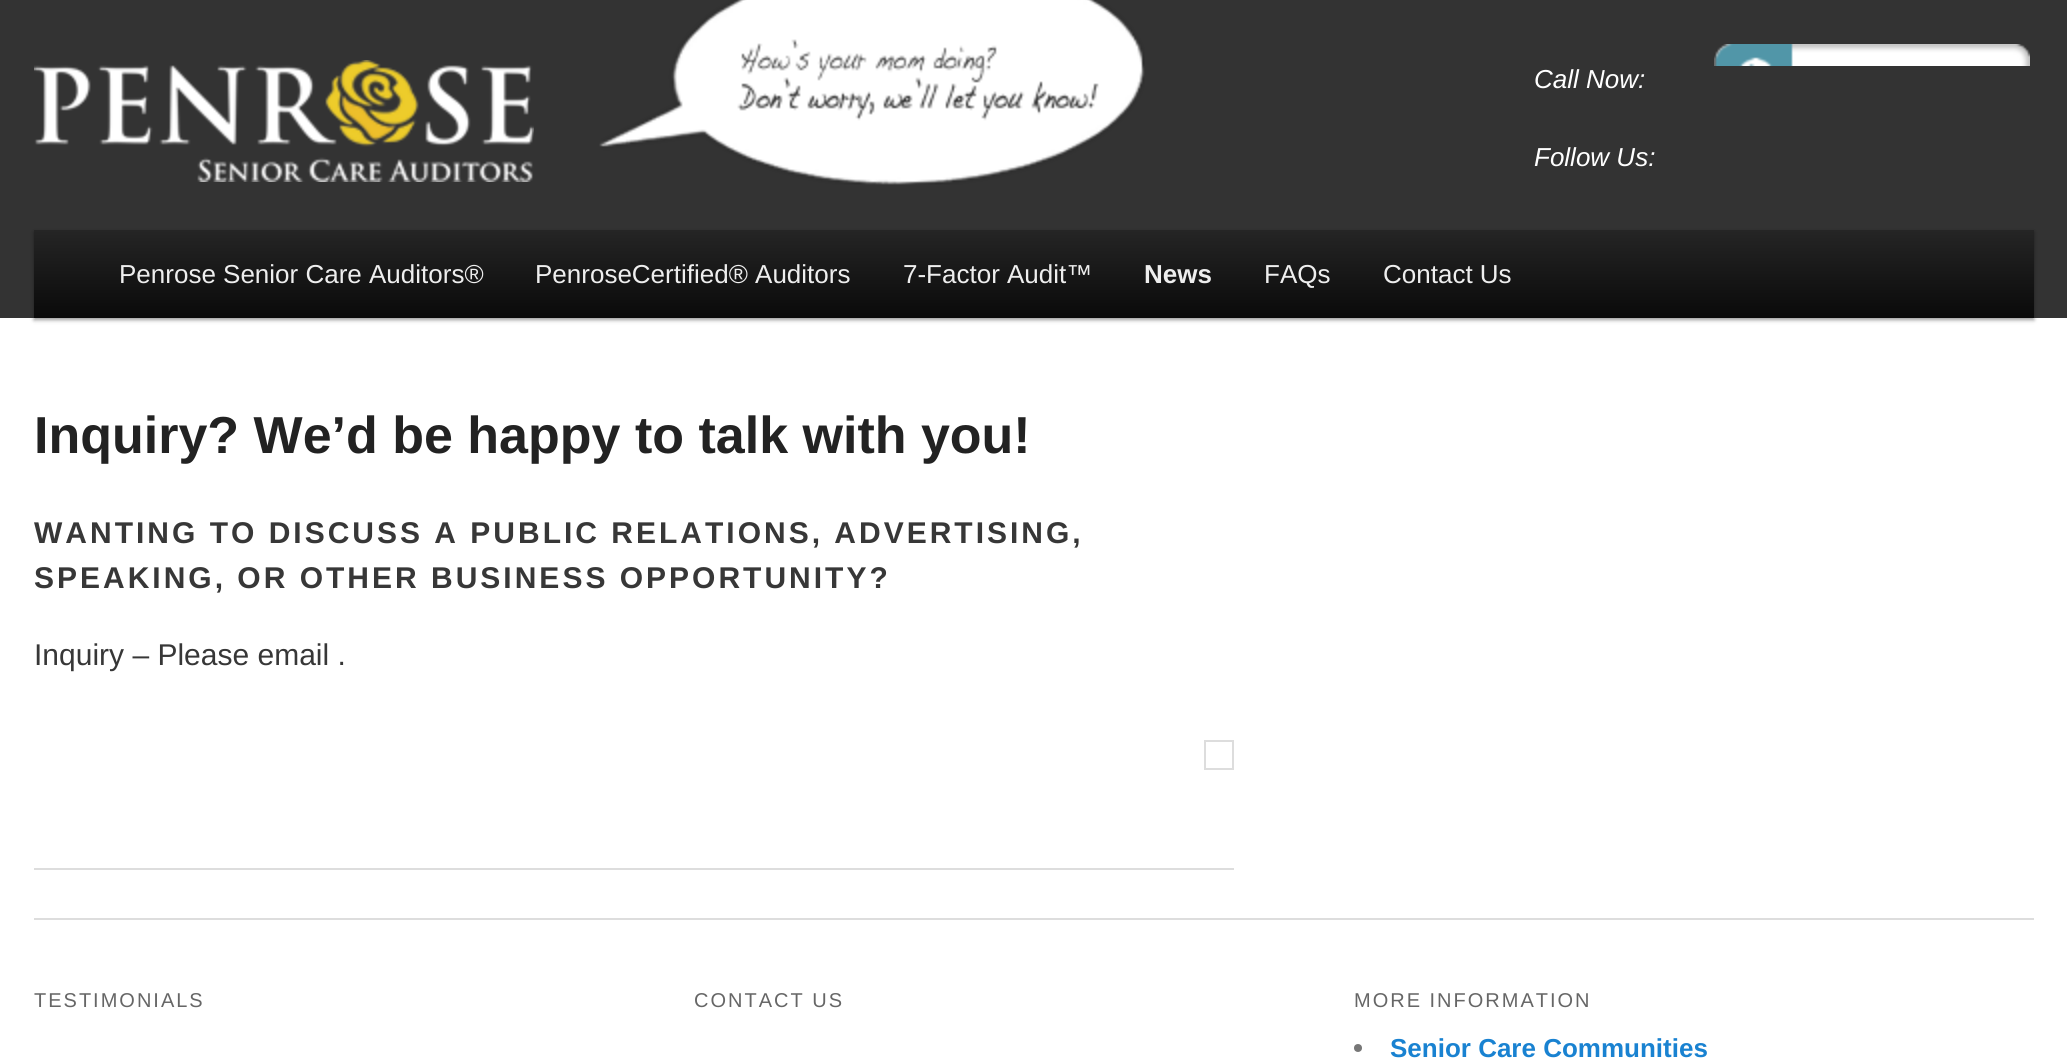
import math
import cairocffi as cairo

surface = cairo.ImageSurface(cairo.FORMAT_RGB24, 2067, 1060)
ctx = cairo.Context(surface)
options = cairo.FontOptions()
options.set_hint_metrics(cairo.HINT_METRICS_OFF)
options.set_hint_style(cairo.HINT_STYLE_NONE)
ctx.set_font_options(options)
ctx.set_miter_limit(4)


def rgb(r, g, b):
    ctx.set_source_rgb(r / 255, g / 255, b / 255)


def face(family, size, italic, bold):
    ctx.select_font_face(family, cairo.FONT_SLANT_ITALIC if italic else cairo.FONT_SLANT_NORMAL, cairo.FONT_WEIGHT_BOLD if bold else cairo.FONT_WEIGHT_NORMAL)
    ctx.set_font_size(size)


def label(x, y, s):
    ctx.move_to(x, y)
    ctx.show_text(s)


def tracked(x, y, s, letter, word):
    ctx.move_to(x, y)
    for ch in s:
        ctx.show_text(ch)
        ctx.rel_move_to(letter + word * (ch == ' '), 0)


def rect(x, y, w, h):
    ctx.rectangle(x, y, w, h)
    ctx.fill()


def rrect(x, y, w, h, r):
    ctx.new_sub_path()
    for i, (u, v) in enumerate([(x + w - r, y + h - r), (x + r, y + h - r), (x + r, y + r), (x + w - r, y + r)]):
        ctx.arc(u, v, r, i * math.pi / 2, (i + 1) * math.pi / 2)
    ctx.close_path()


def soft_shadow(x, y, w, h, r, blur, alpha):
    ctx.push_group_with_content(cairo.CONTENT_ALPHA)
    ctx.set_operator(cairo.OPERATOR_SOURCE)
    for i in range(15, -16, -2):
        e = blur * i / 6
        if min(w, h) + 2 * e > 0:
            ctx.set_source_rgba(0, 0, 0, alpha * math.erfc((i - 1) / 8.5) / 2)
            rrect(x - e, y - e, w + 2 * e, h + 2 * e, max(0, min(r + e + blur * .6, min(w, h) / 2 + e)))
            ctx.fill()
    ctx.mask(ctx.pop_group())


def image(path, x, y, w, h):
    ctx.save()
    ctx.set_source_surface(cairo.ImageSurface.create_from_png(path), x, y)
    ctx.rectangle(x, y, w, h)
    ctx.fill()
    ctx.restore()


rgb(255, 255, 255)
ctx.paint()
rgb(51, 51, 51)
rect(0, 0, 2067, 318)
image('image0.png', 34, 60, 500, 122)
image('image1.png', 599, 0, 546, 185)
image('image2.png', 1714, 44, 316, 22)
face('Liberation Sans', 26, 1, 0)
rgb(255, 255, 255)
label(1534, 88, 'Call Now:')
label(1534, 166, 'Follow Us:')
rgb(0, 0, 0)
soft_shadow(34, 232, 2000, 88, 0, 2, 0.4)
gradient = cairo.LinearGradient(1034, 230, 1034, 318)
gradient.add_color_stop_rgba(0, 0.145, 0.145, 0.145, 1)
gradient.add_color_stop_rgba(1, 0.039, 0.039, 0.039, 1)
ctx.set_source(gradient)
rect(34, 230, 2000, 88)
face('Liberation Sans', 26, 0, 0)
rgb(238, 238, 238)
label(119, 283, 'Penrose Senior Care Auditors®')
label(535, 283, 'PenroseCertified® Auditors')
label(903, 283, '7-Factor Audit™')
face('Liberation Sans', 26, 0, 1)
label(1144, 283, 'News')
face('Liberation Sans', 26, 0, 0)
label(1264, 283, 'FAQs')
label(1383, 283, 'Contact Us')
rgb(221, 221, 221)
rect(34, 868, 1200, 2)
face('Liberation Sans', 52, 0, 1)
rgb(34, 34, 34)
label(34, 453, 'Inquiry? We’d be happy to talk with you!')
face('Liberation Sans', 30, 0, 1)
rgb(55, 55, 55)
tracked(34, 543, 'WANTING TO DISCUSS A PUBLIC RELATIONS, ADVERTISING,', 3, 0)
tracked(34, 588, 'SPEAKING, OR OTHER BUSINESS OPPORTUNITY?', 3, 0)
face('Liberation Sans', 30, 0, 0)
label(34, 665, 'Inquiry – Please email .')
ctx.rectangle(1205, 741, 28, 28)
rgb(221, 221, 221)
ctx.stroke()
rect(34, 918, 2000, 2)
face('Liberation Sans', 20, 0, 0)
rgb(102, 102, 102)
tracked(34, 1007, 'TESTIMONIALS', 2, 0)
tracked(694, 1007, 'CONTACT US', 2, 0)
tracked(1354, 1007, 'MORE INFORMATION', 2, 0)
rgb(119, 119, 119)
ctx.new_path()
ctx.arc(1358, 1048, 4, 0, 2 * math.pi)
ctx.fill()
face('Liberation Sans', 26, 0, 1)
rgb(25, 130, 209)
label(1390, 1057, 'Senior Care Communities')
surface.write_to_png('render.png')
